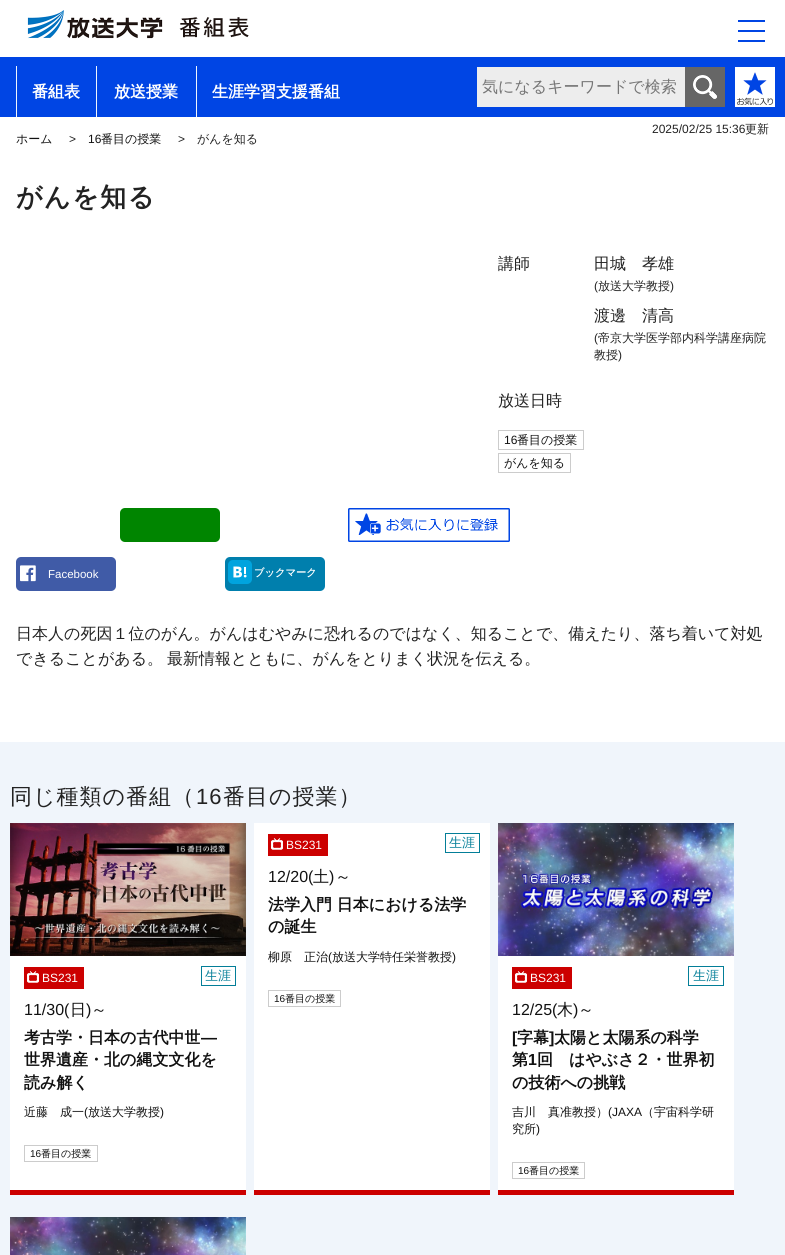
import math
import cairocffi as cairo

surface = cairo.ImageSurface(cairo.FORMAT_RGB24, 785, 1255)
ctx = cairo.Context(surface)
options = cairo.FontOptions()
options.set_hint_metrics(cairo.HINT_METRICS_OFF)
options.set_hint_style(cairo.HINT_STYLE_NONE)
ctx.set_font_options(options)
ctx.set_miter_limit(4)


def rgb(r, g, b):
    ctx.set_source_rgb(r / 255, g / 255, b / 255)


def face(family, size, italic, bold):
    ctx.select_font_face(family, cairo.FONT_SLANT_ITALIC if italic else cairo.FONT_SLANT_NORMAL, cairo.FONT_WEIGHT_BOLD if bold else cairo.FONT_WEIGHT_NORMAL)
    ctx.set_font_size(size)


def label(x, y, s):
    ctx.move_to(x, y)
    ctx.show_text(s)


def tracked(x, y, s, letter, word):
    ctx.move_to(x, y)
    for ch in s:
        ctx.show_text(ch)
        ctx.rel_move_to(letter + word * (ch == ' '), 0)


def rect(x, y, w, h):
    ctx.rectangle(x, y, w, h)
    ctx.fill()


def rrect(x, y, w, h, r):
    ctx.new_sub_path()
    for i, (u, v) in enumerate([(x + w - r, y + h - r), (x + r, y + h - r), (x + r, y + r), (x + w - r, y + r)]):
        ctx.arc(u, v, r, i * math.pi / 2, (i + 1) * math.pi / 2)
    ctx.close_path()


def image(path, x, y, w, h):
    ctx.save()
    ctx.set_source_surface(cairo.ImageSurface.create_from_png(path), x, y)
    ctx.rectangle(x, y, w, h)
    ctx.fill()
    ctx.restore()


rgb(255, 255, 255)
ctx.paint()
image('image0.png', 27, 10, 222, 29)
rgb(0, 69, 228)
rect(738, 20, 27, 2)
rect(738, 30, 27, 2)
rect(738, 40, 27, 2)
rect(0, 57, 785, 60)
rgb(240, 245, 252)
rect(16, 66, 1, 51)
face('WenQuanYi Zen Hei', 16, 0, 1)
rgb(255, 255, 255)
label(32, 97, '番組表')
rgb(240, 245, 252)
rect(96, 66, 1, 51)
rgb(255, 255, 255)
label(114, 97, '放送授業')
rgb(240, 245, 252)
rect(196, 66, 1, 51)
rgb(255, 255, 255)
label(212, 97, '生涯学習支援番組')
rgb(237, 237, 237)
rect(477, 67, 208, 40)
face('WenQuanYi Zen Hei Medium', 16, 0, 0)
rgb(117, 117, 117)
label(482, 92, '気になるキーワードで検索')
rgb(102, 102, 102)
rect(685, 67, 40, 40)
image('image1.png', 693, 75, 24, 24)
image('image2.png', 735, 67, 40, 40)
face('Liberation Sans', 12, 0, 0)
rgb(34, 34, 34)
label(652, 133, '2025/02/25 15:36')
face('WenQuanYi Zen Hei Medium', 12, 0, 0)
label(745, 133, '更新')
rgb(17, 17, 17)
label(16, 143, 'ホーム')
face('Liberation Sans', 12, 0, 0)
rgb(34, 34, 34)
label(69, 143, '>')
rgb(17, 17, 17)
label(88, 143, '16')
face('WenQuanYi Zen Hei Medium', 12, 0, 0)
label(101, 143, '番目の授業')
face('Liberation Sans', 12, 0, 0)
rgb(34, 34, 34)
label(178, 143, '>')
face('WenQuanYi Zen Hei Medium', 12, 0, 0)
label(197, 143, 'がんを知る')
face('WenQuanYi Zen Hei', 26, 0, 1)
tracked(16, 206, 'がんを知る', 1.5, 0)
face('WenQuanYi Zen Hei Medium', 16, 0, 0)
label(498, 269, '講師')
label(594, 269, '田城　孝雄')
face('Liberation Sans', 12, 0, 0)
label(594, 290, '(')
face('WenQuanYi Zen Hei Medium', 12, 0, 0)
label(598, 290, '放送大学教授')
face('Liberation Sans', 12, 0, 0)
label(670, 290, ')')
face('WenQuanYi Zen Hei Medium', 16, 0, 0)
label(594, 321, '渡邊　清高')
face('Liberation Sans', 12, 0, 0)
label(594, 342, '(')
face('WenQuanYi Zen Hei Medium', 12, 0, 0)
label(598, 342, '帝京大学医学部内科学講座病院')
label(594, 359, '教授')
face('Liberation Sans', 12, 0, 0)
label(618, 359, ')')
face('WenQuanYi Zen Hei Medium', 16, 0, 0)
label(498, 406, '放送日時')
ctx.rectangle(498.5, 430.5, 85, 19)
rgb(204, 204, 204)
ctx.set_line_width(1)
ctx.stroke()
face('Liberation Sans', 12, 0, 0)
rgb(17, 17, 17)
label(504, 444, '16')
face('WenQuanYi Zen Hei Medium', 12, 0, 0)
label(517, 444, '番目の授業')
ctx.rectangle(498.5, 453.5, 72, 19)
rgb(204, 204, 204)
ctx.stroke()
rgb(17, 17, 17)
label(504, 467, 'がんを知る')
image('image3.png', 348, 508, 162, 34)
rgb(0, 133, 0)
rrect(120, 508, 100, 34, 5)
ctx.fill()
rgb(64, 91, 167)
rrect(16, 557, 100, 34, 5)
ctx.fill()
image('image4.png', 20, 565, 16, 17)
face('Liberation Sans', 11.5, 0, 0)
rgb(255, 255, 255)
label(48, 578, 'Facebook')
rgb(0, 127, 173)
rrect(225, 557, 100, 34, 5)
ctx.fill()
image('image5.png', 228, 560, 24, 24)
face('WenQuanYi Zen Hei', 10.25, 0, 1)
rgb(255, 255, 255)
label(254, 576, 'ブックマーク')
face('WenQuanYi Zen Hei Medium', 16, 0, 0)
rgb(34, 34, 34)
label(16, 639, '日本人の死因１位のがん。がんはむやみに恐れるのではなく、知ることで、備えたり、落ち着いて対処')
label(16, 664, 'できることがある。')
label(167, 664, '最新情報とともに、がんをとりまく状況を伝える。')
rgb(240, 245, 251)
rect(0, 742, 785, 513)
face('WenQuanYi Zen Hei Medium', 22, 0, 0)
rgb(34, 34, 34)
tracked(10, 804, '同じ種類の番組（', 1, 0)
face('Liberation Sans', 22, 0, 0)
tracked(196, 804, '16', 1, 0)
face('WenQuanYi Zen Hei Medium', 22, 0, 0)
tracked(223, 804, '番目の授業）', 1, 0)
rgb(255, 255, 255)
rect(254, 823, 236, 367)
rgb(204, 0, 0)
rect(254, 1190, 236, 5)
rect(268, 834, 60, 22)
image('image6.png', 271, 838, 12, 12)
face('Liberation Sans', 12, 0, 0)
rgb(255, 255, 255)
label(286, 849, 'BS231')
ctx.rectangle(445.5, 833.5, 34, 19)
rgb(3, 126, 152)
ctx.stroke()
face('WenQuanYi Zen Hei Medium', 13, 0, 0)
label(449, 847, '生涯')
face('Liberation Sans', 16, 0, 0)
rgb(17, 17, 17)
label(268, 882, '12/20(')
face('WenQuanYi Zen Hei Medium', 16, 0, 0)
label(313, 882, '土')
face('Liberation Sans', 16, 0, 0)
label(329, 882, ')')
face('WenQuanYi Zen Hei Medium', 16, 0, 0)
label(335, 882, '～')
face('WenQuanYi Zen Hei', 16, 0, 1)
label(268, 910, '法学入門 日本における法学')
label(268, 932, 'の誕生')
face('WenQuanYi Zen Hei Medium', 12, 0, 0)
label(268, 961, '柳原　正治')
face('Liberation Sans', 12, 0, 0)
label(328, 961, '(')
face('WenQuanYi Zen Hei Medium', 12, 0, 0)
label(332, 961, '放送大学特任栄誉教授')
face('Liberation Sans', 12, 0, 0)
label(452, 961, ')')
ctx.rectangle(268.5, 990.5, 72, 16)
rgb(204, 204, 204)
ctx.stroke()
face('Liberation Sans', 10, 0, 0)
rgb(17, 17, 17)
label(274, 1002, '16')
face('WenQuanYi Zen Hei Medium', 10, 0, 0)
label(285, 1002, '番目の授業')
rgb(255, 255, 255)
rect(10, 956, 236, 234)
rgb(204, 0, 0)
rect(10, 1190, 236, 5)
image('image7.png', 10, 823, 236, 133)
rect(24, 967, 60, 22)
image('image6.png', 27, 971, 12, 12)
face('Liberation Sans', 12, 0, 0)
rgb(255, 255, 255)
label(42, 982, 'BS231')
ctx.rectangle(201.5, 966.5, 34, 19)
rgb(3, 126, 152)
ctx.stroke()
face('WenQuanYi Zen Hei Medium', 13, 0, 0)
label(205, 980, '生涯')
face('Liberation Sans', 16, 0, 0)
rgb(17, 17, 17)
label(24, 1015, '11/30(')
face('WenQuanYi Zen Hei Medium', 16, 0, 0)
label(70, 1015, '日')
face('Liberation Sans', 16, 0, 0)
label(86, 1015, ')')
face('WenQuanYi Zen Hei Medium', 16, 0, 0)
label(91, 1015, '～')
face('WenQuanYi Zen Hei', 16, 0, 1)
label(24, 1043, '考古学・日本の古代中世')
face('Liberation Sans', 16, 0, 1)
label(201, 1043, '―')
face('WenQuanYi Zen Hei', 16, 0, 1)
label(24, 1065, '世界遺産・北の縄文文化を')
label(24, 1088, '読み解く')
face('WenQuanYi Zen Hei Medium', 12, 0, 0)
label(24, 1116, '近藤　成一')
face('Liberation Sans', 12, 0, 0)
label(84, 1116, '(')
face('WenQuanYi Zen Hei Medium', 12, 0, 0)
label(88, 1116, '放送大学教授')
face('Liberation Sans', 12, 0, 0)
label(160, 1116, ')')
ctx.rectangle(24.5, 1145.5, 73, 16)
rgb(204, 204, 204)
ctx.stroke()
face('Liberation Sans', 10, 0, 0)
rgb(17, 17, 17)
label(30, 1157, '16')
face('WenQuanYi Zen Hei Medium', 10, 0, 0)
label(41, 1157, '番目の授業')
rgb(255, 255, 255)
rect(498, 956, 236, 234)
rgb(204, 0, 0)
rect(498, 1190, 236, 5)
image('image8.png', 498, 823, 236, 133)
rect(512, 967, 60, 22)
image('image6.png', 515, 971, 12, 12)
face('Liberation Sans', 12, 0, 0)
rgb(255, 255, 255)
label(530, 982, 'BS231')
ctx.rectangle(688.5, 966.5, 35, 19)
rgb(3, 126, 152)
ctx.stroke()
face('WenQuanYi Zen Hei Medium', 13, 0, 0)
label(693, 980, '生涯')
face('Liberation Sans', 16, 0, 0)
rgb(17, 17, 17)
label(512, 1015, '12/25(')
face('WenQuanYi Zen Hei Medium', 16, 0, 0)
label(557, 1015, '木')
face('Liberation Sans', 16, 0, 0)
label(573, 1015, ')')
face('WenQuanYi Zen Hei Medium', 16, 0, 0)
label(578, 1015, '～')
face('Liberation Sans', 16, 0, 1)
label(512, 1043, '[')
face('WenQuanYi Zen Hei', 16, 0, 1)
label(517, 1043, '字幕')
face('Liberation Sans', 16, 0, 1)
label(549, 1043, ']')
face('WenQuanYi Zen Hei', 16, 0, 1)
label(554, 1043, '太陽と太陽系の科学')
label(512, 1065, '第')
face('Liberation Sans', 16, 0, 1)
label(528, 1065, '1')
face('WenQuanYi Zen Hei', 16, 0, 1)
label(537, 1065, '回　はやぶさ２・世界初')
label(512, 1088, 'の技術への挑戦')
face('WenQuanYi Zen Hei Medium', 12, 0, 0)
label(512, 1116, '吉川　真准教授）')
face('Liberation Sans', 12, 0, 0)
label(608, 1116, '(JAXA')
face('WenQuanYi Zen Hei Medium', 12, 0, 0)
label(642, 1116, '（宇宙科学研')
label(512, 1133, '究所')
face('Liberation Sans', 12, 0, 0)
label(536, 1133, ')')
ctx.rectangle(512.5, 1162.5, 72, 16)
rgb(204, 204, 204)
ctx.stroke()
face('Liberation Sans', 10, 0, 0)
rgb(17, 17, 17)
label(518, 1174, '16')
face('WenQuanYi Zen Hei Medium', 10, 0, 0)
label(529, 1174, '番目の授業')
image('image9.png', 10, 1217, 236, 38)
surface.write_to_png('render.png')
